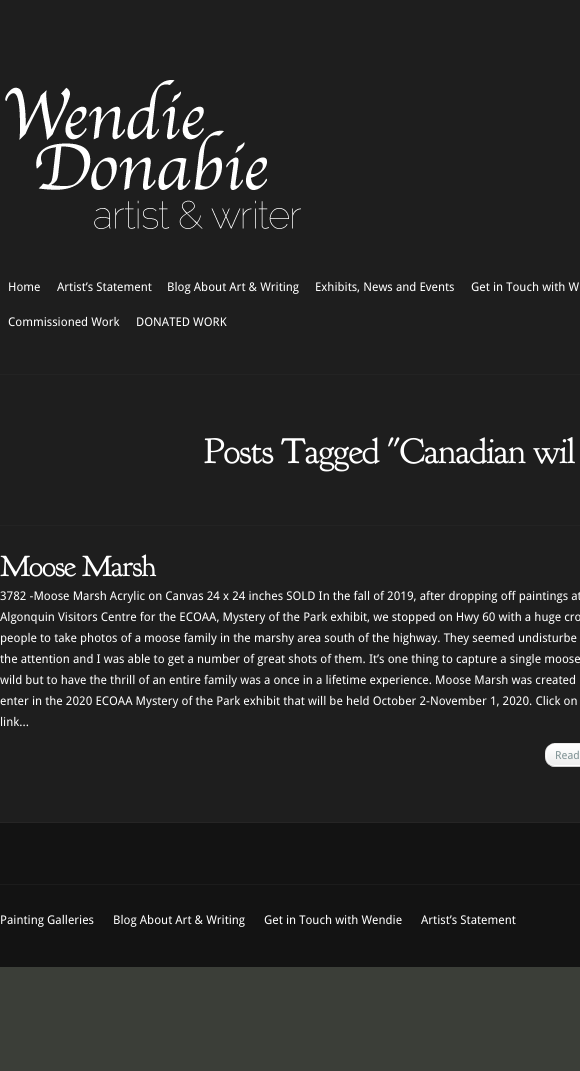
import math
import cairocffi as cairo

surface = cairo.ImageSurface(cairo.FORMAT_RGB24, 580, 1071)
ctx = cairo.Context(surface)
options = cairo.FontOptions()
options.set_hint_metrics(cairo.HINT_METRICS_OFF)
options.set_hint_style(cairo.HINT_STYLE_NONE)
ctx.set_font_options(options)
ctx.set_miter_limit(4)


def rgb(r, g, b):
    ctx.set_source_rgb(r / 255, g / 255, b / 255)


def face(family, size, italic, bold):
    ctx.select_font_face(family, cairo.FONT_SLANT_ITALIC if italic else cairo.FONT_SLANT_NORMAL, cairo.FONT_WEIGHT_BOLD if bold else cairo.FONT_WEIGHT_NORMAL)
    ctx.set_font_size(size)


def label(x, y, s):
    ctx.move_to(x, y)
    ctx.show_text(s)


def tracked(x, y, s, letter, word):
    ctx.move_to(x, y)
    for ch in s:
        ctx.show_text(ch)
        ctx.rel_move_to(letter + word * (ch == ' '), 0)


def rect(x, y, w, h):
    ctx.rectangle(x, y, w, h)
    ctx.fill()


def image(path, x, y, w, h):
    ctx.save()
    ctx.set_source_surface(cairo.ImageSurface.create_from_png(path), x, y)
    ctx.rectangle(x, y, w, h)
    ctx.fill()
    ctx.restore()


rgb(59, 62, 56)
ctx.paint()
rgb(30, 30, 30)
rect(0, 0, 580, 822)
rgb(35, 35, 35)
rect(0, 374, 580, 1)
image('image0.png', 5, 80, 296, 149)
face('Droid Sans', 12, 0, 0)
rgb(255, 255, 255)
label(8, 291, 'Home')
label(57, 291, 'Artist’s Statement')
label(167, 291, 'Blog About Art & Writing')
label(315, 291, 'Exhibits, News and Events')
label(471, 291, 'Get in Touch with W')
label(8, 326, 'Commissioned Work')
label(136, 326, 'DONATED WORK')
face('Goudy Bookletter 1911', 36, 0, 0)
tracked(204, 463, 'Posts Tagged "Canadian wil', -1, 0)
rgb(35, 35, 35)
rect(0, 525, 580, 1)
face('Goudy Bookletter 1911', 30, 0, 0)
rgb(255, 255, 255)
tracked(0, 576, 'Moose Marsh', -1, 0)
face('Droid Sans', 12, 0, 0)
label(0, 600, '3782 -Moose Marsh Acrylic on Canvas 24 x 24 inches SOLD In the fall of 2019, after dropping off paintings at')
label(0, 621, 'Algonquin Visitors Centre for the ECOAA, Mystery of the Park exhibit, we stopped on Hwy 60 with a huge cro')
label(0, 642, 'people to take photos of a moose family in the marshy area south of the highway. They seemed undisturbe')
label(0, 663, 'the attention and I was able to get a number of great shots of them. It’s one thing to capture a single moose')
label(0, 684, 'wild but to have the thrill of an entire family was a once in a lifetime experience. Moose Marsh was created')
label(0, 705, 'enter in the 2020 ECOAA Mystery of the Park exhibit that will be held October 2-November 1, 2020. Click on')
label(0, 726, 'link...')
image('image1.png', 545, 743, 35, 24)
face('Droid Sans', 11, 0, 0)
rgb(126, 146, 148)
label(555, 759, 'Read')
rgb(19, 19, 19)
rect(0, 823, 580, 144)
rgb(38, 37, 37)
rect(0, 822, 580, 1)
rgb(28, 28, 28)
rect(0, 884, 580, 1)
face('Droid Sans', 12, 0, 0)
rgb(255, 255, 255)
label(0, 924, 'Painting Galleries')
label(113, 924, 'Blog About Art & Writing')
label(264, 924, 'Get in Touch with Wendie')
label(421, 924, 'Artist’s Statement')
surface.write_to_png('render.png')
